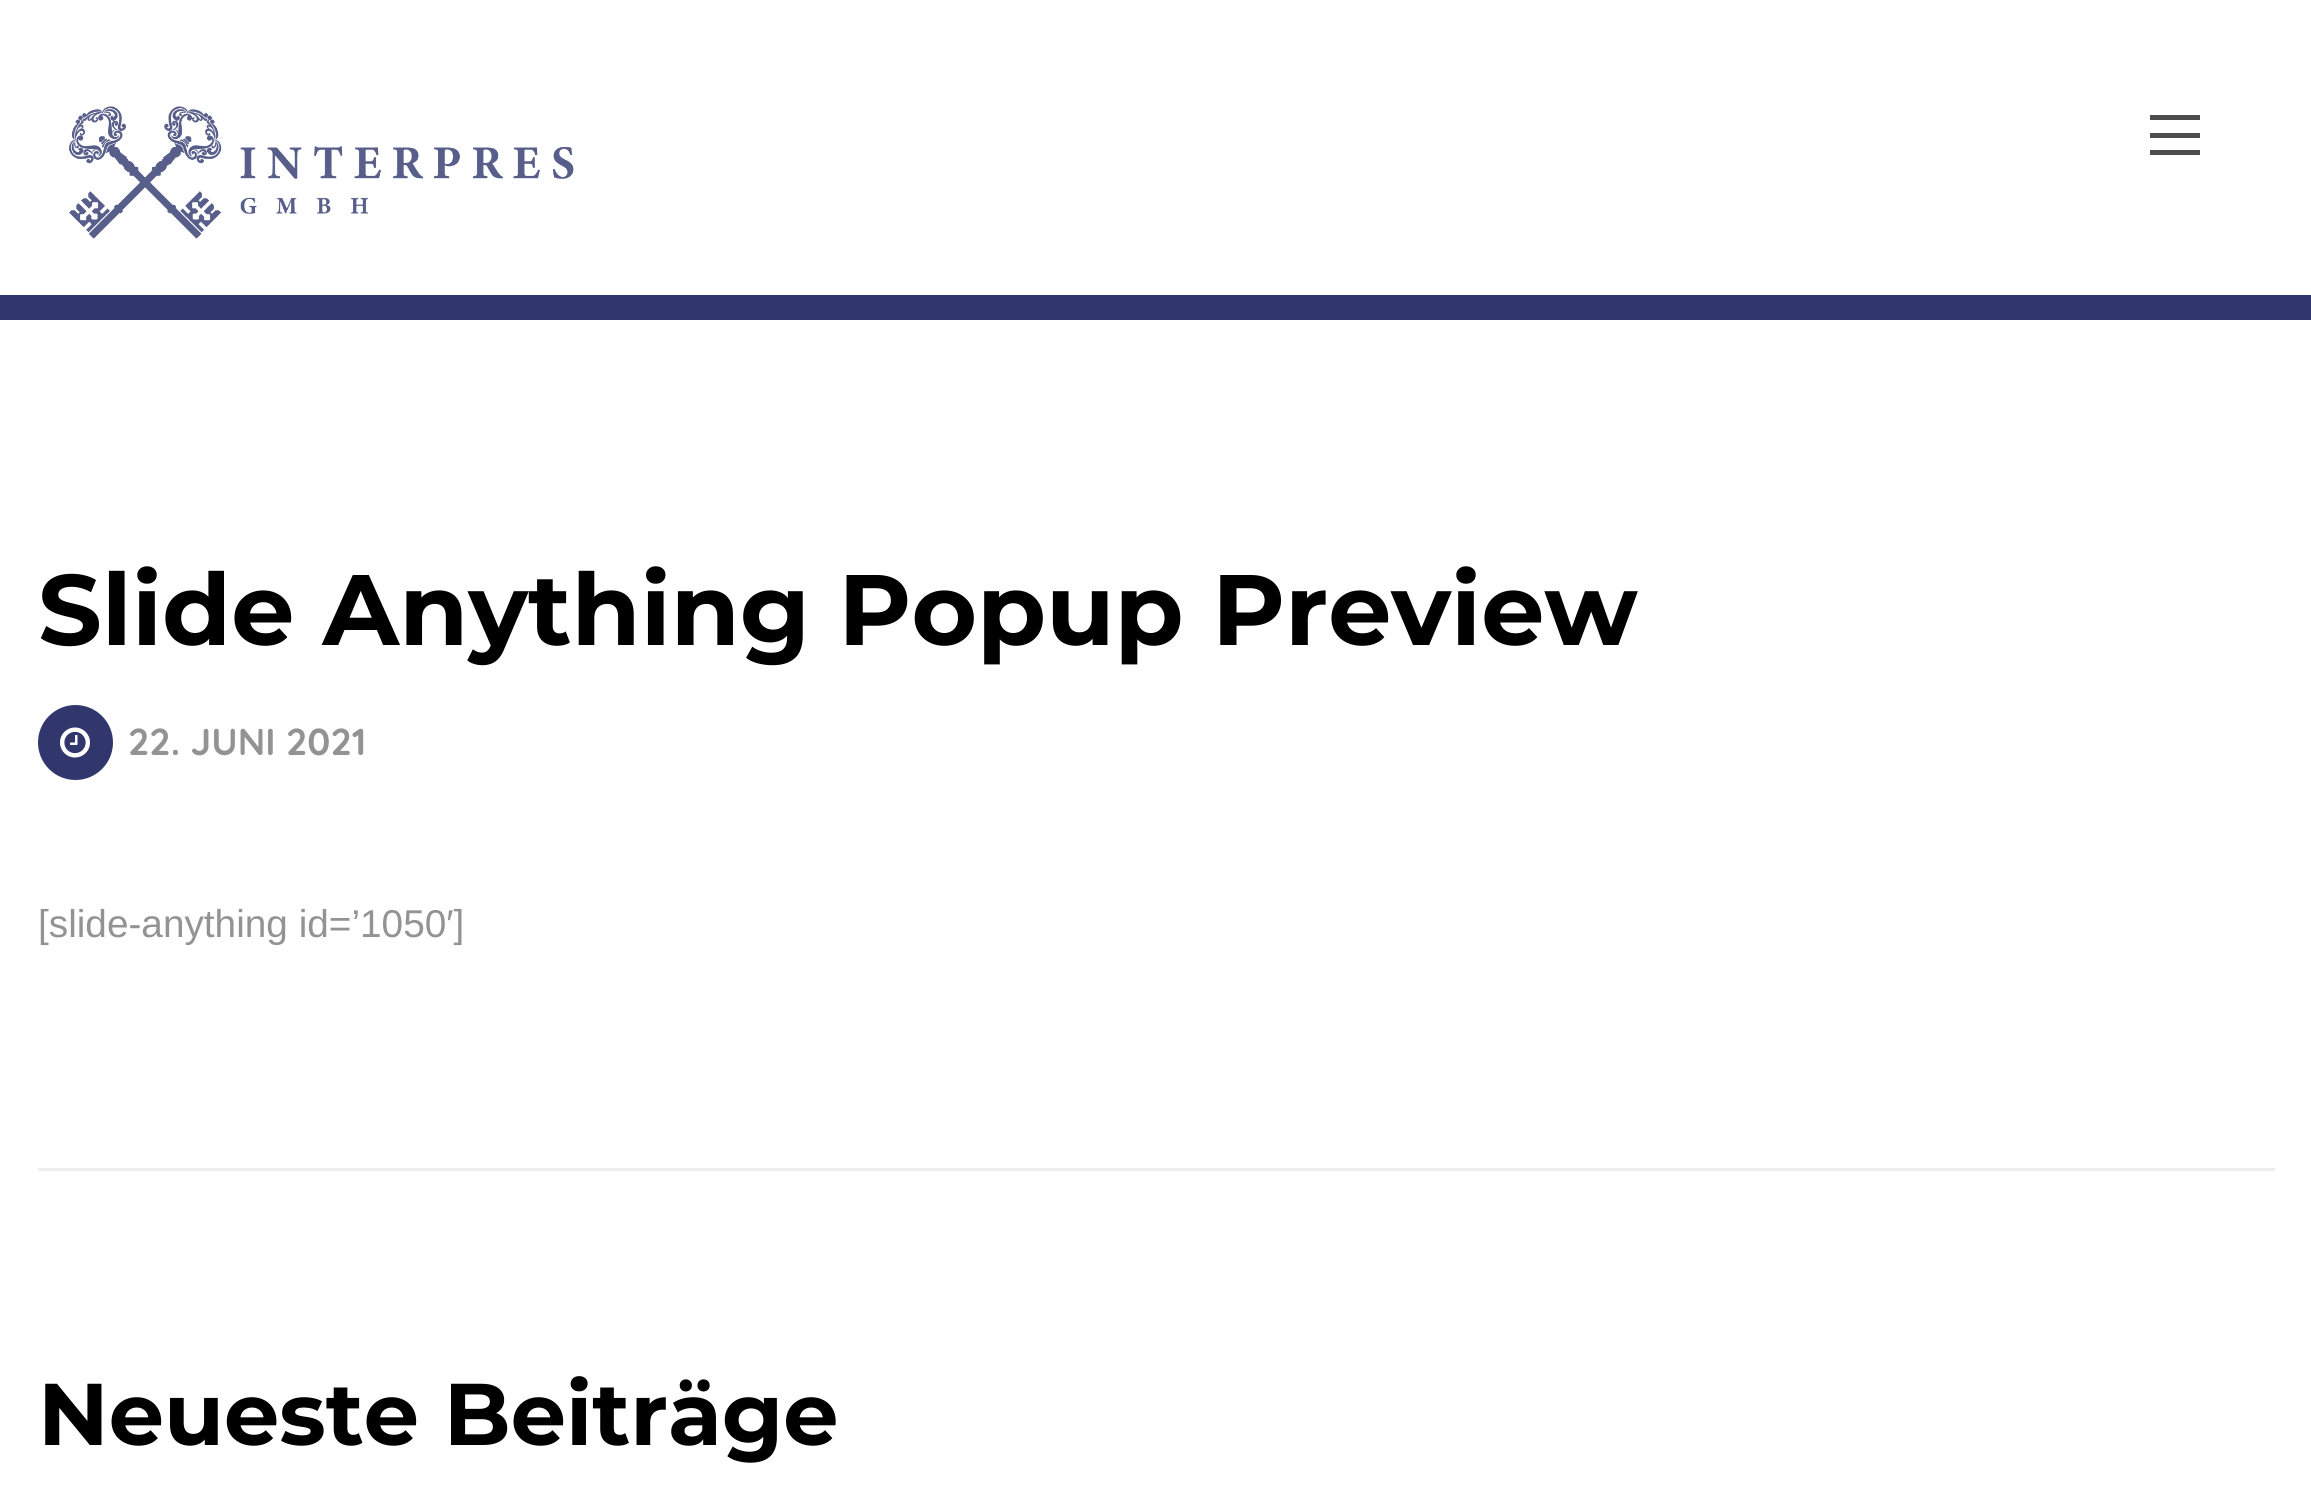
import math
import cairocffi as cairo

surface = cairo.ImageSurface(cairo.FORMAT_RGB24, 2311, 1490)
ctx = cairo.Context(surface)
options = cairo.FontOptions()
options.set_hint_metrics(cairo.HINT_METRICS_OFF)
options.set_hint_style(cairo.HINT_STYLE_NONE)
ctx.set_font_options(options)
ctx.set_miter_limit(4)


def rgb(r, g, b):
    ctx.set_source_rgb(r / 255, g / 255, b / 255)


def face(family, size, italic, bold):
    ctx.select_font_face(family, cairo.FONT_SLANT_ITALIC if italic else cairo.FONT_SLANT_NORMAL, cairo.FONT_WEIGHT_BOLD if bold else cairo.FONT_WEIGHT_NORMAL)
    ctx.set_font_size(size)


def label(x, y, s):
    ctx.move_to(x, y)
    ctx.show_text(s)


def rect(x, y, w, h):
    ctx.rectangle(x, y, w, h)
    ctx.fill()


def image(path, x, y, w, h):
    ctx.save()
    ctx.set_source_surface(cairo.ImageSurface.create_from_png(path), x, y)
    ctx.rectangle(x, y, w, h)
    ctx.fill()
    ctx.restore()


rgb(255, 255, 255)
ctx.paint()
rgb(49, 55, 109)
rect(0, 295, 2311, 25)
image('image0.png', 68, 106, 506, 133)
rgb(76, 76, 76)
rect(2150, 133, 50, 5)
rect(2150, 115, 50, 5)
rect(2150, 150, 50, 5)
face('Montserrat', 100, 0, 1)
rgb(0, 0, 0)
label(38, 645, 'Slide Anything Popup Preview')
rgb(49, 55, 109)
ctx.new_path()
ctx.arc(75.5, 742.5, 37.5, 0, 2 * math.pi)
ctx.fill()
image('image1.png', 60, 727, 30, 31)
face('Quicksand', 37.5, 0, 1)
rgb(147, 147, 147)
label(128, 755, '22. JUNI 2021')
face('Arimo', 38.75, 0, 0)
label(38, 937, '[slide-anything id=’1050′]')
rgb(238, 238, 238)
rect(38, 1168, 2237, 3)
face('Montserrat', 87.5, 0, 1)
rgb(0, 0, 0)
label(38, 1445, 'Neueste Beiträge')
surface.write_to_png('render.png')
